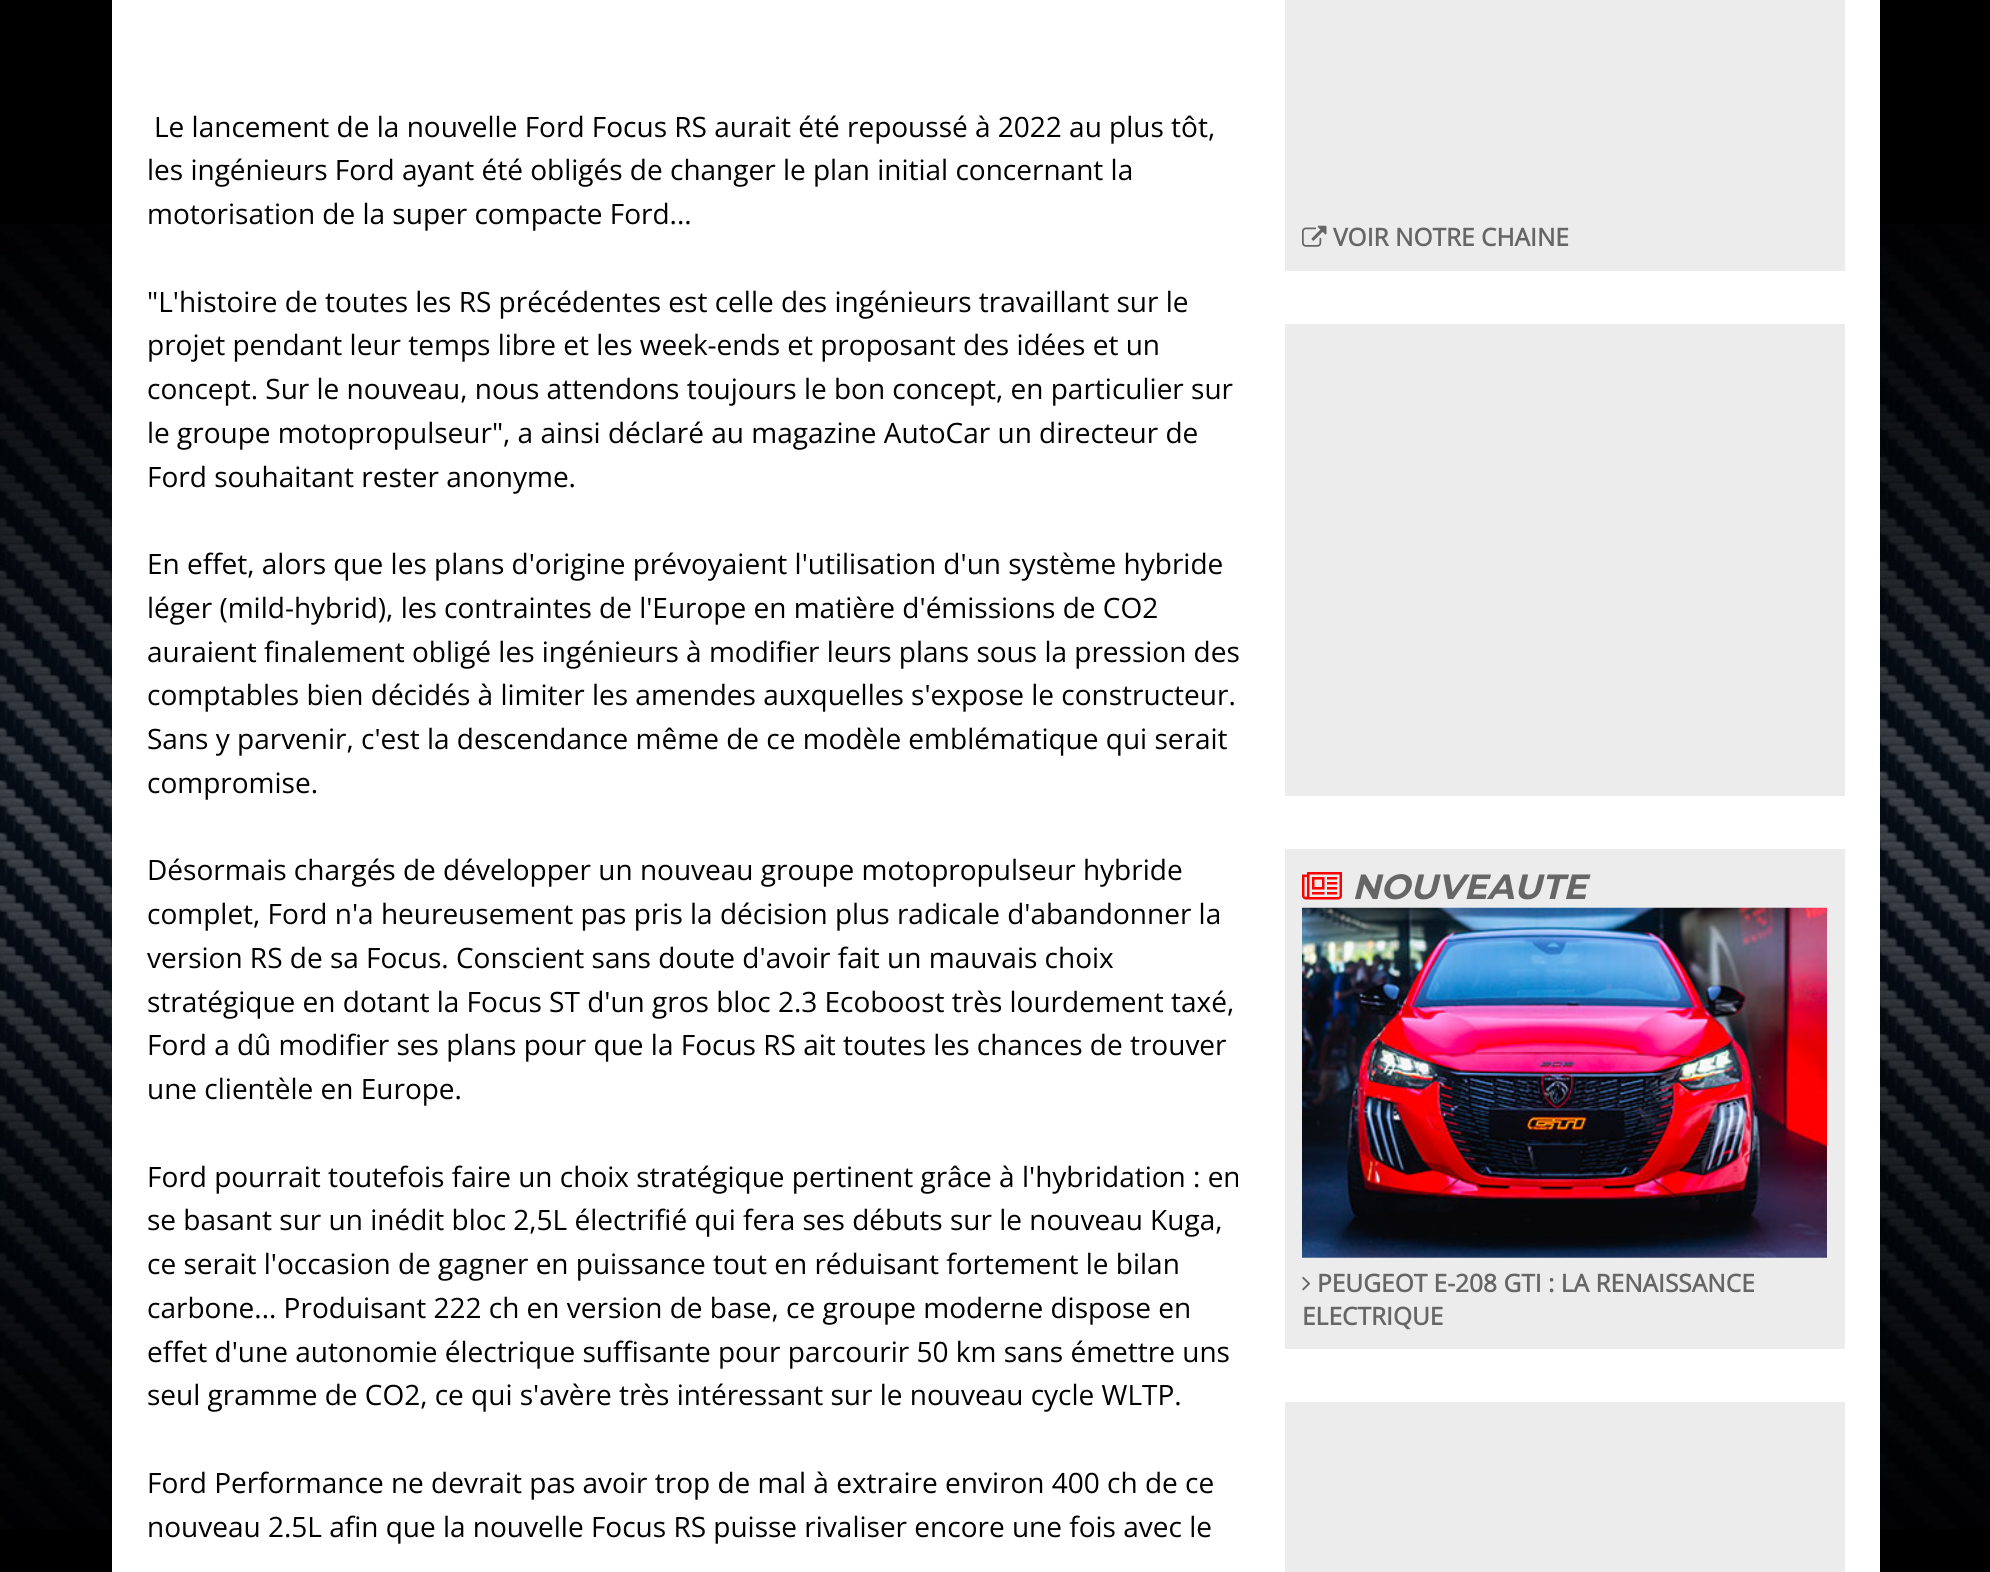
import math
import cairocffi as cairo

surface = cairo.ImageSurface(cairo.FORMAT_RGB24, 1990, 1572)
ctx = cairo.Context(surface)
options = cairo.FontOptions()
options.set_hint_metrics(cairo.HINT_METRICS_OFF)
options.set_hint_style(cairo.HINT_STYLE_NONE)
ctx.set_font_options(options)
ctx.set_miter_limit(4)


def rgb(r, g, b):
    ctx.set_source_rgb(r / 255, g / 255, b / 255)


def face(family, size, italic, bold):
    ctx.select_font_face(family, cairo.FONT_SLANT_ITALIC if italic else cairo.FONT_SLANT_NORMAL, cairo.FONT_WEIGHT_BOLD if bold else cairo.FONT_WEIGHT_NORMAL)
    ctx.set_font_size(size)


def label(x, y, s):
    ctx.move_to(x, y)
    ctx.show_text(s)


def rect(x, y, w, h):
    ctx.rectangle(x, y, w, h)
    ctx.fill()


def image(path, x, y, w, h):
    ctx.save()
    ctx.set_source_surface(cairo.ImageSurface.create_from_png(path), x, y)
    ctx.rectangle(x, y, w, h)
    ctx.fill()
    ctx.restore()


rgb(0, 0, 0)
ctx.paint()
image('image0.png', 0, 224, 1990, 1305)
rgb(255, 255, 255)
rect(112, 0, 1768, 1572)
face('Open Sans', 28, 0, 0)
rgb(0, 0, 0)
label(154, 137, 'Le lancement de la nouvelle Ford Focus RS aurait été repoussé à 2022 au plus tôt,')
label(147, 180, 'les ingénieurs Ford ayant été obligés de changer le plan initial concernant la')
label(147, 224, 'motorisation de la super compacte Ford...')
label(147, 312, '"L\'histoire de toutes les RS précédentes est celle des ingénieurs travaillant sur le')
label(147, 355, 'projet pendant leur temps libre et les week-ends et proposant des idées et un')
label(147, 399, 'concept. Sur le nouveau, nous attendons toujours le bon concept, en particulier sur')
label(147, 443, 'le groupe motopropulseur", a ainsi déclaré au magazine AutoCar un directeur de')
label(147, 487, 'Ford souhaitant rester anonyme.')
label(147, 574, 'En effet, alors que les plans d\'origine prévoyaient l\'utilisation d\'un système hybride')
label(147, 618, 'léger (mild-hybrid), les contraintes de l\'Europe en matière d\'émissions de CO2')
label(147, 662, 'auraient finalement obligé les ingénieurs à modifier leurs plans sous la pression des')
label(147, 705, 'comptables bien décidés à limiter les amendes auxquelles s\'expose le constructeur.')
label(147, 749, 'Sans y parvenir, c\'est la descendance même de ce modèle emblématique qui serait')
label(147, 793, 'compromise.')
label(147, 880, 'Désormais chargés de développer un nouveau groupe motopropulseur hybride')
label(147, 924, 'complet, Ford n\'a heureusement pas pris la décision plus radicale d\'abandonner la')
label(147, 968, 'version RS de sa Focus. Conscient sans doute d\'avoir fait un mauvais choix')
label(147, 1012, 'stratégique en dotant la Focus ST d\'un gros bloc 2.3 Ecoboost très lourdement taxé,')
label(147, 1055, 'Ford a dû modifier ses plans pour que la Focus RS ait toutes les chances de trouver')
label(147, 1099, 'une clientèle en Europe.')
label(147, 1187, 'Ford pourrait toutefois faire un choix stratégique pertinent grâce à l\'hybridation : en')
label(147, 1230, 'se basant sur un inédit bloc 2,5L électrifié qui fera ses débuts sur le nouveau Kuga,')
label(147, 1274, 'ce serait l\'occasion de gagner en puissance tout en réduisant fortement le bilan')
label(147, 1318, 'carbone... Produisant 222 ch en version de base, ce groupe moderne dispose en')
label(147, 1362, 'effet d\'une autonomie électrique suffisante pour parcourir 50 km sans émettre uns')
label(147, 1405, 'seul gramme de CO2, ce qui s\'avère très intéressant sur le nouveau cycle WLTP.')
label(147, 1493, 'Ford Performance ne devrait pas avoir trop de mal à extraire environ 400 ch de ce')
label(147, 1537, 'nouveau 2.5L afin que la nouvelle Focus RS puisse rivaliser encore une fois avec le')
rgb(236, 236, 236)
rect(1285, 0, 560, 271)
image('image1.png', 1302, 225, 25, 22)
face('Open Sans', 24.5, 0, 1)
rgb(102, 102, 102)
label(1333, 246, 'VOIR NOTRE CHAINE')
rgb(236, 236, 236)
rect(1285, 324, 560, 472)
rect(1285, 849, 560, 500)
image('image2.png', 1302, 872, 40, 28)
face('Montserrat', 35, 1, 1)
rgb(102, 102, 102)
label(1352, 899, 'NOUVEAUTE')
image('image3.png', 1302, 907, 525, 351)
image('image4.png', 1302, 1276, 9, 15)
face('Open Sans', 24.5, 0, 1)
label(1317, 1292, 'PEUGEOT E-208 GTI : LA RENAISSANCE')
label(1302, 1325, 'ELECTRIQUE')
rgb(236, 236, 236)
rect(1285, 1402, 560, 170)
surface.write_to_png('render.png')
